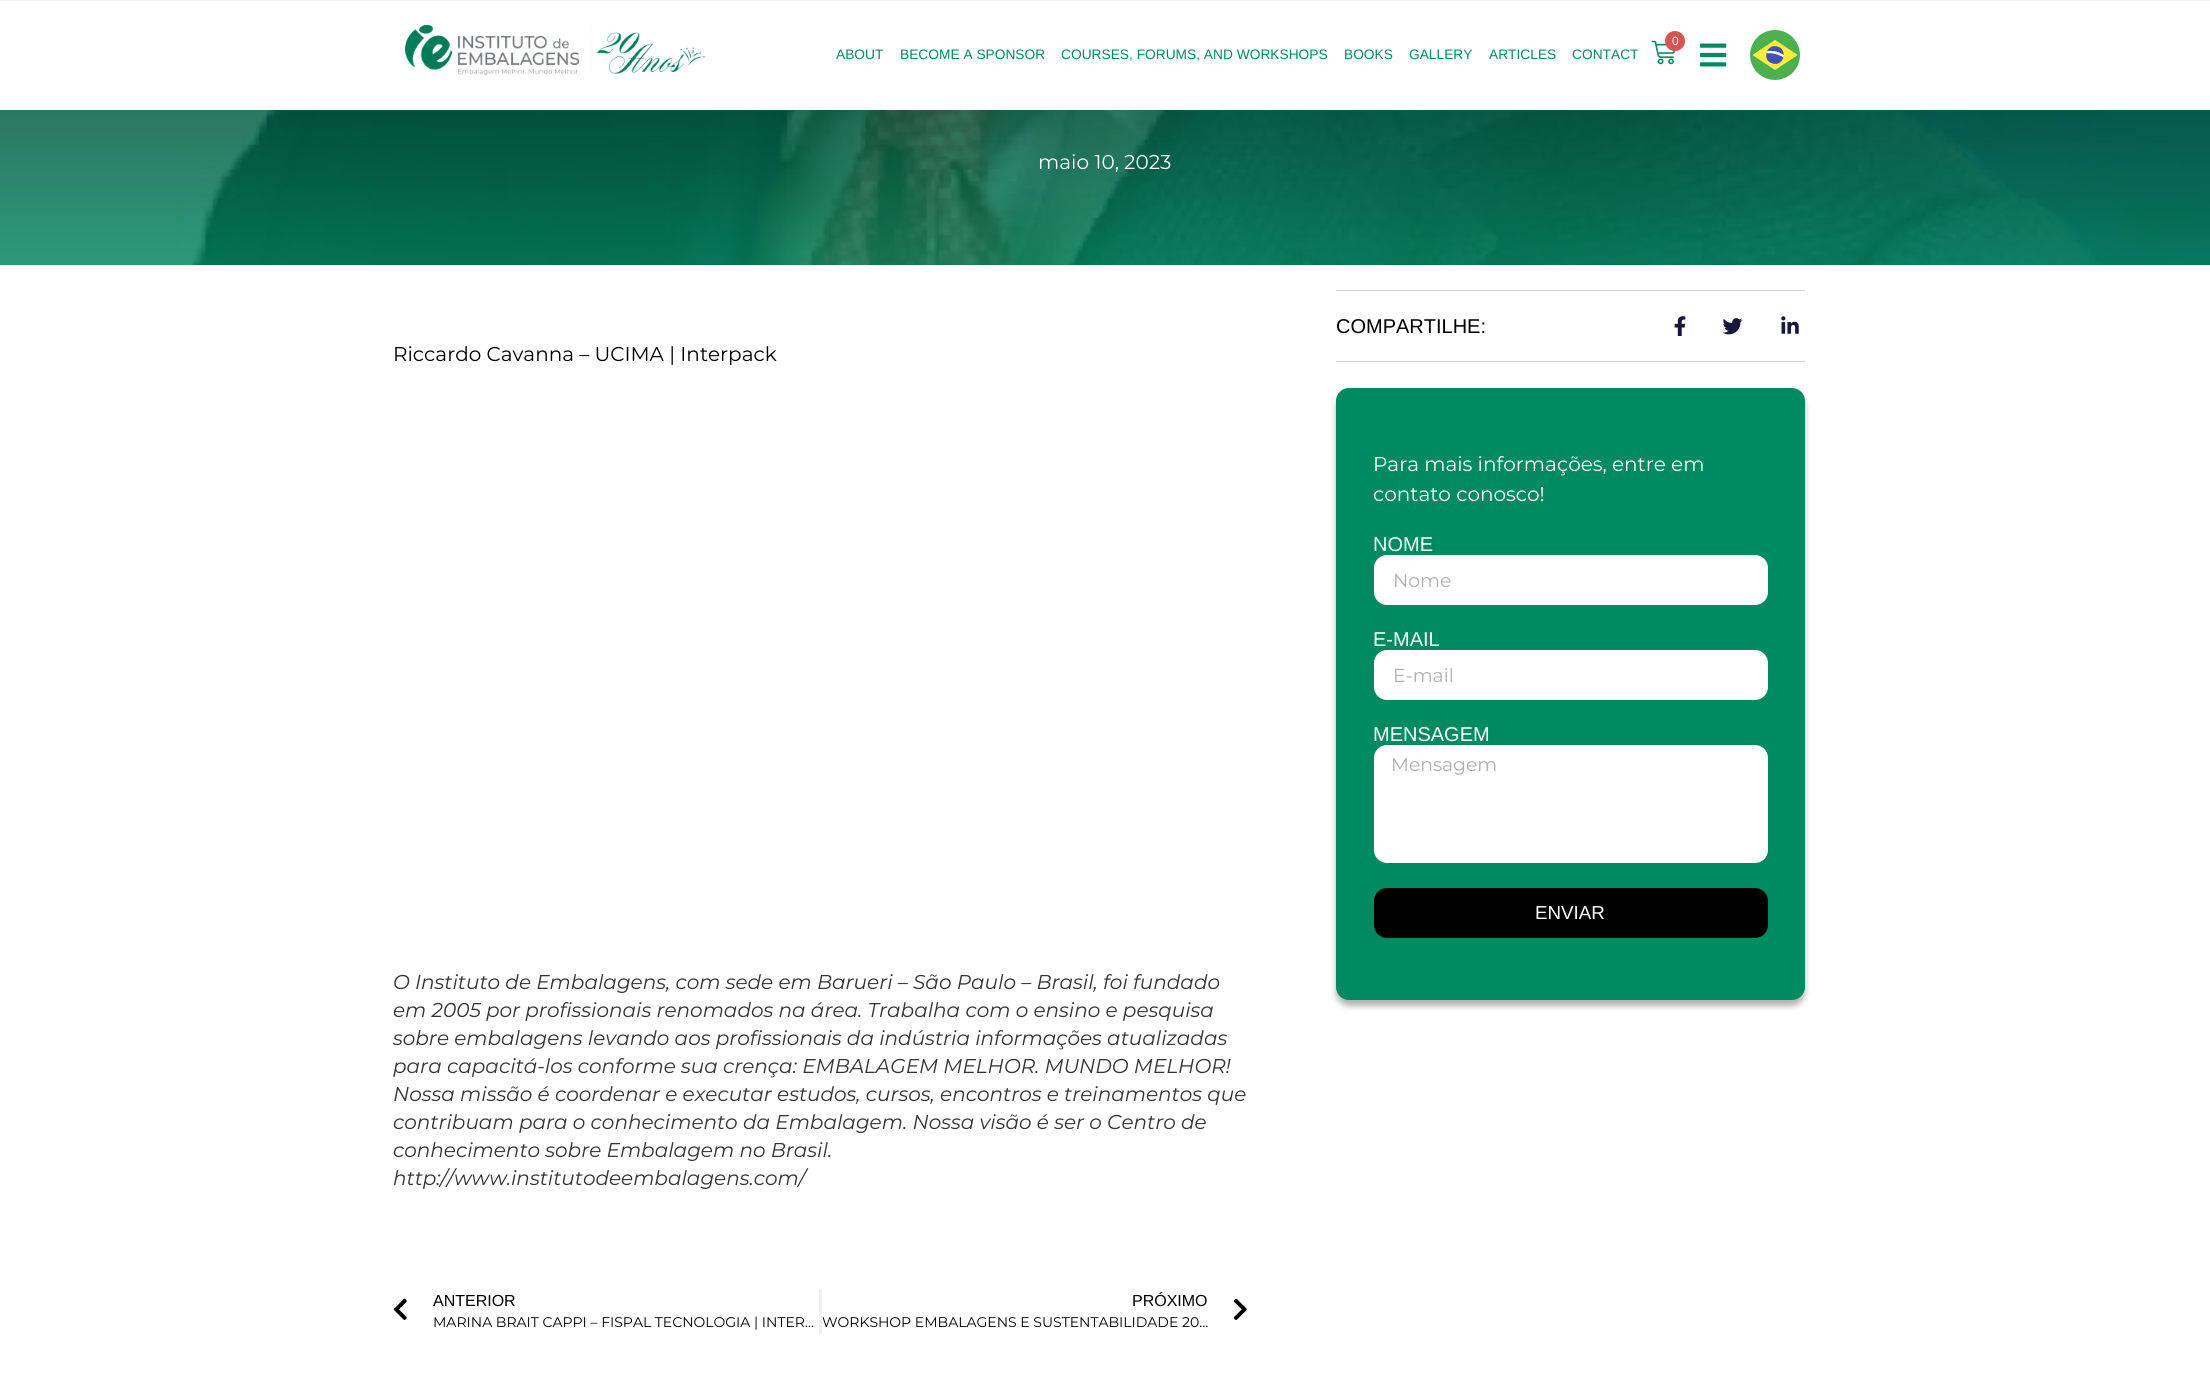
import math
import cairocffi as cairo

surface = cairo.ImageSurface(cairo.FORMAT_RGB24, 2210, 1385)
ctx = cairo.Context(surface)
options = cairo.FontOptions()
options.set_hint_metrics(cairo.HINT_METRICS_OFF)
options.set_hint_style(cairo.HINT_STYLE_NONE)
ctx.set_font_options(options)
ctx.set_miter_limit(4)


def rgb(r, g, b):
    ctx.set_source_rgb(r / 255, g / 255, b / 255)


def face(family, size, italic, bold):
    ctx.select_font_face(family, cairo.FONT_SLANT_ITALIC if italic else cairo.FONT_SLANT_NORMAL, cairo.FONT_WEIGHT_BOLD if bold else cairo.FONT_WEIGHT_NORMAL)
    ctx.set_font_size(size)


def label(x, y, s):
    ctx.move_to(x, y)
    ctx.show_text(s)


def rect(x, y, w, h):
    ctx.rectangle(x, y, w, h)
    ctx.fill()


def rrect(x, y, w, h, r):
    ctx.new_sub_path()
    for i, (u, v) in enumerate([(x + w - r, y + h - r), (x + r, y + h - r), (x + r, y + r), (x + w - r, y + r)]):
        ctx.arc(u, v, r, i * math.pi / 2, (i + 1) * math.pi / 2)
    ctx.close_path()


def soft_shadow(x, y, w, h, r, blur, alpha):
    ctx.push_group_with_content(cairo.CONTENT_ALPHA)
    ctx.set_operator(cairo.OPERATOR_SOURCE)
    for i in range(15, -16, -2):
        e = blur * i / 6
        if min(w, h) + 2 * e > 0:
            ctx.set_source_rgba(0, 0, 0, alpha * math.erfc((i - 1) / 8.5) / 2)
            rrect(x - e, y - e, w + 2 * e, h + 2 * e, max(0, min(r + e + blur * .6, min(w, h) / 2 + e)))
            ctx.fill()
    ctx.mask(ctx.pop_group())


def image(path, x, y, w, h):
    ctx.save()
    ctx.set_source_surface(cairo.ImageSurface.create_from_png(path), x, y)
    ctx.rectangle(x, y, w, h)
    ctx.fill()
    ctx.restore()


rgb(255, 255, 255)
ctx.paint()
rgb(241, 241, 241)
rect(0, 0, 2210, 1)
image('image0.png', 405, 25, 300, 50)
image('image1.png', 1651, 40, 25, 25)
rgb(217, 83, 79)
ctx.arc(1675, 41, 10, 0, 2 * math.pi)
ctx.fill()
face('Liberation Sans', 12, 0, 0)
rgb(255, 255, 255)
label(1672, 45, '0')
image('image2.png', 1750, 30, 50, 50)
face('Liberation Sans', 13.75, 0, 0)
rgb(0, 138, 95)
label(836, 59, 'ABOUT')
label(900, 59, 'BECOME A SPONSOR')
label(1061, 59, 'COURSES, FORUMS, AND WORKSHOPS')
label(1344, 59, 'BOOKS')
label(1409, 59, 'GALLERY')
label(1489, 59, 'ARTICLES')
label(1572, 59, 'CONTACT')
image('image3.png', 1700, 43, 27, 24)
image('image4.png', 0, 110, 2210, 155)
face('Montserrat', 20, 0, 0)
rgb(255, 255, 255)
label(1038, 169, 'maio 10, 2023')
rgb(0, 0, 0)
label(393, 361, 'Riccardo Cavanna – UCIMA | Interpack')
face('Montserrat', 20, 1, 0)
rgb(51, 51, 51)
label(393, 989, 'O Instituto de Embalagens, com sede em Barueri – São Paulo – Brasil, foi fundado')
label(393, 1017, 'em 2005 por profissionais renomados na área. Trabalha com o ensino e pesquisa')
label(393, 1045, 'sobre embalagens levando aos profissionais da indústria informações atualizadas')
label(393, 1073, 'para capacitá-los conforme sua crença: EMBALAGEM MELHOR. MUNDO MELHOR!')
label(393, 1101, 'Nossa missão é coordenar e executar estudos, cursos, encontros e treinamentos que')
label(393, 1129, 'contribuam para o conhecimento da Embalagem. Nossa visão é ser o Centro de')
label(393, 1157, 'conhecimento sobre Embalagem no Brasil.')
label(393, 1185, 'http://www.institutodeembalagens.com/')
image('image5.png', 393, 1298, 14, 22)
face('Liberation Sans', 16, 0, 0)
rgb(0, 0, 0)
label(433, 1306, 'ANTERIOR')
face('Montserrat', 14, 0, 0)
label(433, 1327, 'MARINA BRAIT CAPPI – FISPAL TECNOLOGIA | INTER…')
rgb(241, 241, 241)
rect(819, 1289, 3, 45)
face('Liberation Sans', 16, 0, 0)
rgb(0, 0, 0)
label(1132, 1306, 'PRÓXIMO')
face('Montserrat', 14, 0, 0)
label(822, 1327, 'WORKSHOP EMBALAGENS E SUSTENTABILIDADE 20…')
image('image6.png', 1233, 1298, 14, 22)
rgb(208, 208, 217)
rect(1336, 290, 469, 1)
rect(1336, 361, 469, 1)
face('Liberation Sans', 20, 0, 0)
rgb(0, 0, 0)
label(1336, 333, 'COMPARTILHE:')
image('image7.png', 1674, 316, 12, 20)
image('image8.png', 1722, 318, 21, 17)
image('image9.png', 1781, 316, 18, 18)
rgb(0, 0, 0)
soft_shadow(1336, 394, 469, 612, 13, 3, 0.3)
rgb(0, 138, 95)
rrect(1336, 388, 469, 612, 13)
ctx.fill()
face('Montserrat', 20, 0, 0)
rgb(255, 255, 255)
label(1373, 471, 'Para mais informações, entre em')
label(1373, 501, 'contato conosco!')
face('Liberation Sans', 20, 0, 0)
label(1373, 551, 'NOME')
rrect(1374, 555, 394, 50, 13)
ctx.fill()
face('Montserrat', 18.75, 0, 0)
rgb(175, 175, 175)
label(1393, 587, 'Nome')
face('Liberation Sans', 20, 0, 0)
rgb(255, 255, 255)
label(1373, 646, 'E-MAIL')
rrect(1374, 650, 394, 50, 13)
ctx.fill()
face('Montserrat', 18.75, 0, 0)
rgb(175, 175, 175)
label(1393, 682, 'E-mail')
face('Liberation Sans', 20, 0, 0)
rgb(255, 255, 255)
label(1373, 741, 'MENSAGEM')
rrect(1374, 745, 394, 118, 13)
ctx.fill()
face('Montserrat', 18.75, 0, 0)
rgb(175, 175, 175)
label(1391, 771, 'Mensagem')
rgb(0, 0, 0)
rrect(1374, 888, 394, 50, 13)
ctx.fill()
face('Liberation Sans', 18.75, 0, 0)
rgb(255, 255, 255)
label(1535, 919, 'ENVIAR')
surface.write_to_png('render.png')
